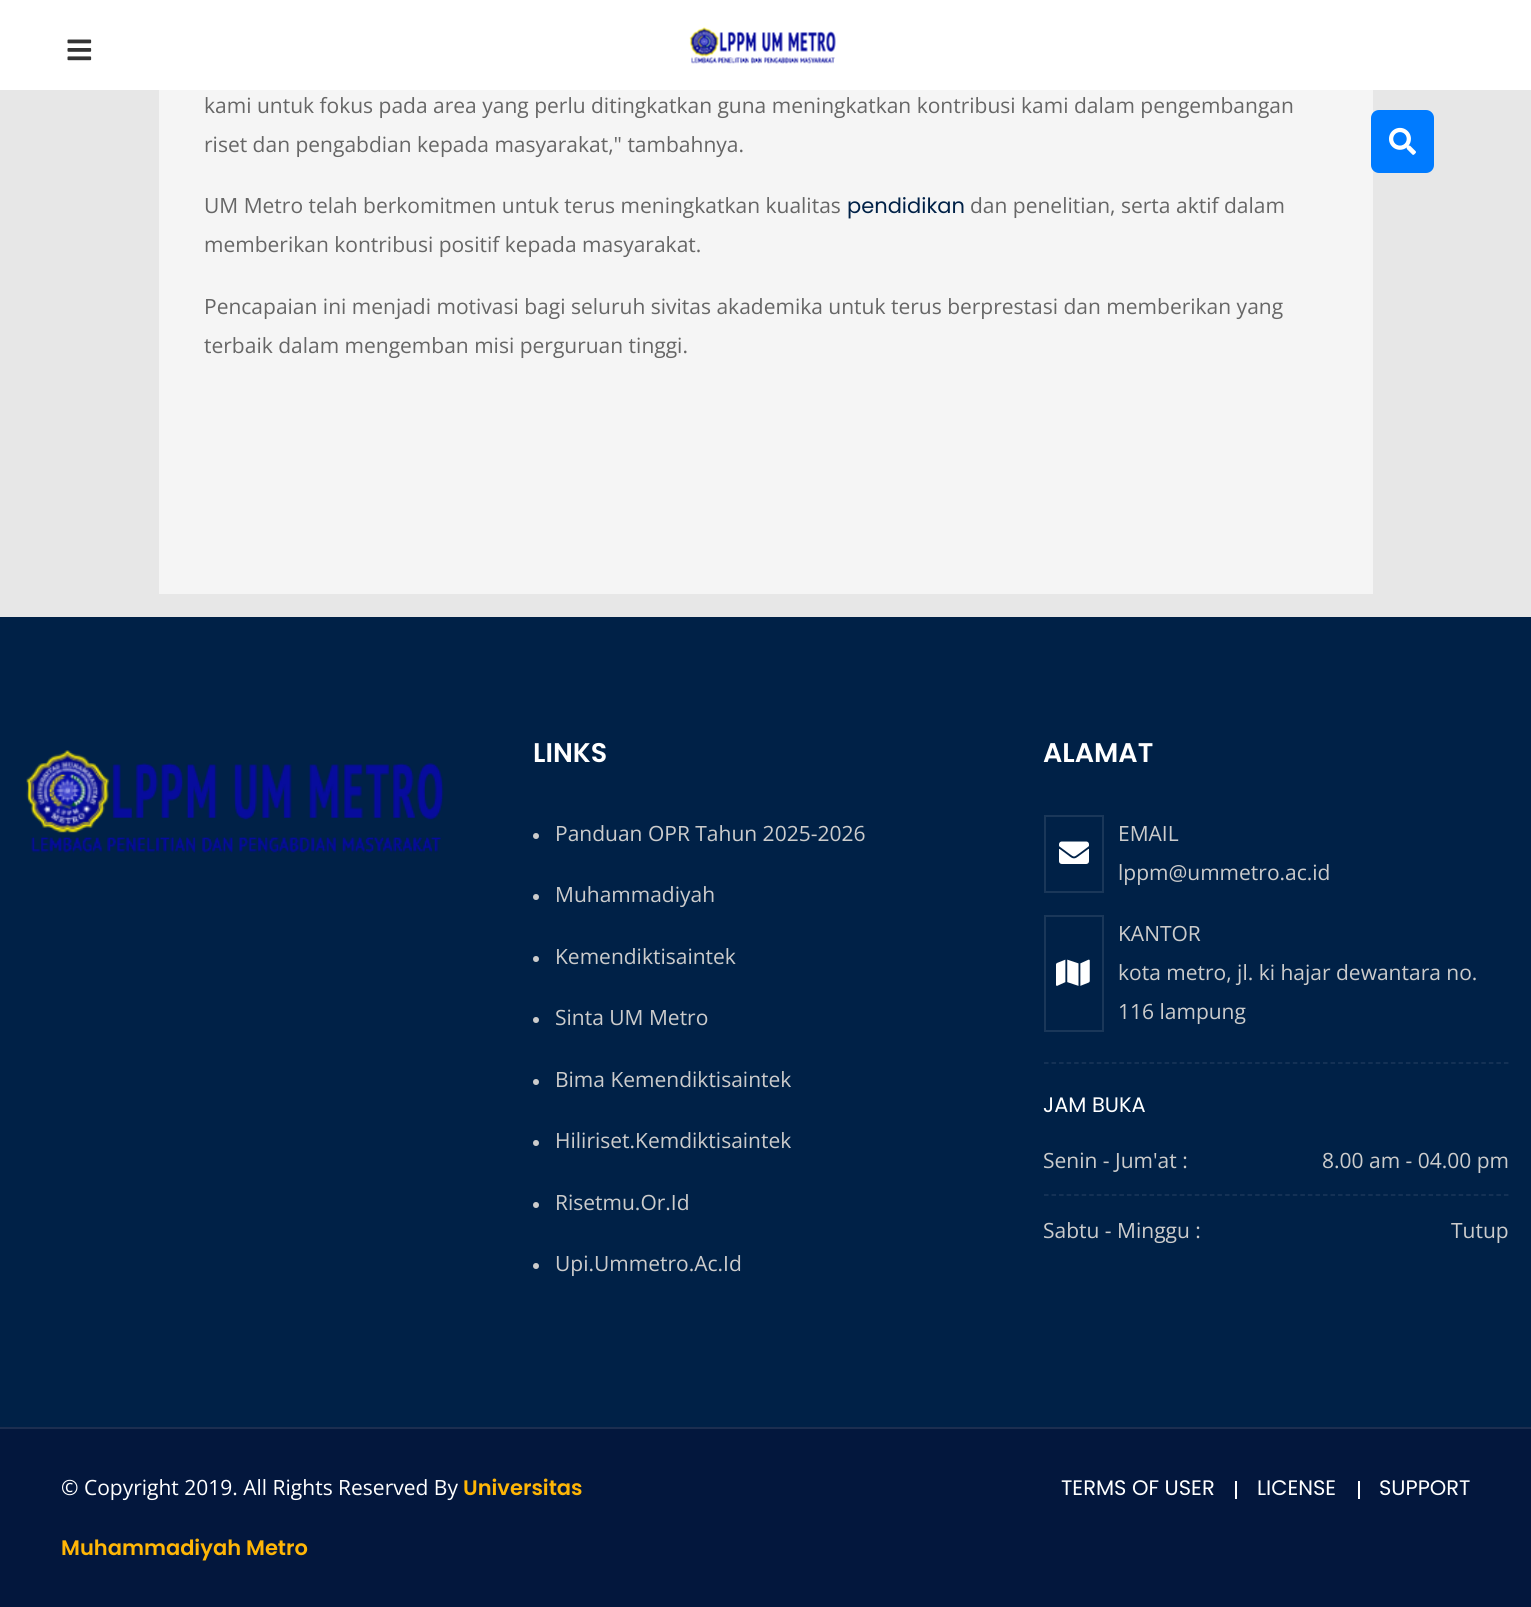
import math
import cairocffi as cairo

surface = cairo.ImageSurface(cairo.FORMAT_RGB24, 1531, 1607)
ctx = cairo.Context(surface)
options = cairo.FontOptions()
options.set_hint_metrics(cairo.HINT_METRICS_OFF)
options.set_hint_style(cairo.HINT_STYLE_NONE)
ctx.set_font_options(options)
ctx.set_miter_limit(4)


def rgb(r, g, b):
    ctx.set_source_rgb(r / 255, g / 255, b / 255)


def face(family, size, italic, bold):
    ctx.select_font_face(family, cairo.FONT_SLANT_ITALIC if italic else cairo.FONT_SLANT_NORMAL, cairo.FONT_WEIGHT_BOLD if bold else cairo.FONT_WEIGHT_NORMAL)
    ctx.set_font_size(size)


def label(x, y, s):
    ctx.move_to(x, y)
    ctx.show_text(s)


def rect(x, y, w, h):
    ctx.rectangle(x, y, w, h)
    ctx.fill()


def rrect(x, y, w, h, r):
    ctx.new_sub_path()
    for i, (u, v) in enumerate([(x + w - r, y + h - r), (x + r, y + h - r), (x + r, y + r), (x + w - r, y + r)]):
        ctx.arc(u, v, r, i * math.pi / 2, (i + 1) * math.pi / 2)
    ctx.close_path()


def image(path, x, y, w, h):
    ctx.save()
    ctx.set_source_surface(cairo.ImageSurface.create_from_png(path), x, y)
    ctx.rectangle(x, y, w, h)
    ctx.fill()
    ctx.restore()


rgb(231, 231, 231)
ctx.paint()
rgb(255, 255, 255)
rect(0, 0, 1531, 90)
image('image0.png', 67, 39, 25, 22)
image('image1.png', 689, 27, 147, 37)
rgb(245, 245, 245)
rect(159, 90, 1214, 504)
rgb(0, 123, 255)
rrect(1371, 110, 63, 63, 8)
ctx.fill()
image('image2.png', 1389, 127, 27, 28)
face('Open Sans', 21, 0, 0)
rgb(102, 102, 102)
label(204, 113, 'kami untuk fokus pada area yang perlu ditingkatkan guna meningkatkan kontribusi kami dalam pengembangan')
label(204, 152, 'riset dan pengabdian kepada masyarakat," tambahnya.')
label(204, 213, 'UM Metro telah berkomitmen untuk terus meningkatkan kualitas')
face('Poppins', 21, 0, 0)
rgb(0, 33, 71)
label(847, 213, 'pendidikan')
face('Open Sans', 21, 0, 0)
rgb(102, 102, 102)
label(970, 213, 'dan penelitian, serta aktif dalam')
label(204, 252, 'memberikan kontribusi positif kepada masyarakat.')
label(204, 314, 'Pencapaian ini menjadi motivasi bagi seluruh sivitas akademika untuk terus berprestasi dan memberikan yang')
label(204, 353, 'terbaik dalam mengemban misi perguruan tinggi.')
rgb(0, 33, 71)
rect(0, 617, 1531, 810)
image('image3.png', 26, 750, 418, 103)
face('Poppins SemiBold', 27, 0, 0)
rgb(255, 255, 255)
label(533, 762, 'LINKS')
rgb(204, 204, 204)
ctx.new_path()
ctx.arc(536, 836, 3, 0, 2 * math.pi)
ctx.fill()
face('Open Sans', 21, 0, 0)
label(555, 841, 'Panduan OPR Tahun 2025-2026')
ctx.new_path()
ctx.arc(536, 897, 3, 0, 2 * math.pi)
ctx.fill()
label(555, 902, 'Muhammadiyah')
ctx.new_path()
ctx.arc(536, 959, 3, 0, 2 * math.pi)
ctx.fill()
label(555, 964, 'Kemendiktisaintek')
ctx.new_path()
ctx.arc(536, 1020, 3, 0, 2 * math.pi)
ctx.fill()
label(555, 1025, 'Sinta UM Metro')
ctx.new_path()
ctx.arc(536, 1082, 3, 0, 2 * math.pi)
ctx.fill()
label(555, 1087, 'Bima Kemendiktisaintek')
ctx.new_path()
ctx.arc(536, 1143, 3, 0, 2 * math.pi)
ctx.fill()
label(555, 1148, 'Hiliriset.Kemdiktisaintek')
ctx.new_path()
ctx.arc(536, 1205, 3, 0, 2 * math.pi)
ctx.fill()
label(555, 1210, 'Risetmu.Or.Id')
ctx.new_path()
ctx.arc(536, 1266, 3, 0, 2 * math.pi)
ctx.fill()
label(555, 1271, 'Upi.Ummetro.Ac.Id')
face('Poppins SemiBold', 27, 0, 0)
rgb(255, 255, 255)
label(1043, 762, 'ALAMAT')
ctx.rectangle(1045, 816, 58, 76)
rgb(26, 55, 89)
ctx.stroke()
image('image4.png', 1059, 841, 30, 23)
face('Open Sans', 21, 0, 0)
rgb(204, 204, 204)
label(1118, 841, 'EMAIL')
label(1118, 880, 'lppm@ummetro.ac.id')
ctx.rectangle(1045, 916, 58, 115)
rgb(26, 55, 89)
ctx.stroke()
image('image5.png', 1056, 959, 34, 27)
rgb(204, 204, 204)
label(1118, 941, 'KANTOR')
label(1118, 980, 'kota metro, jl. ki hajar dewantara no.')
label(1118, 1019, '116 lampung')
ctx.new_path()
ctx.move_to(1044, 1063)
ctx.line_to(1509, 1063)
rgb(26, 55, 89)
ctx.set_line_width(1.5)
ctx.set_dash([4.5, 3.04])
ctx.stroke()
face('Poppins', 21, 0, 0)
rgb(255, 255, 255)
label(1043, 1112, 'JAM BUKA')
ctx.new_path()
ctx.move_to(1044, 1195)
ctx.line_to(1509, 1195)
rgb(26, 55, 89)
ctx.stroke()
face('Open Sans', 21, 0, 0)
rgb(204, 204, 204)
label(1043, 1168, 'Senin - Jum\'at :')
label(1322, 1168, '8.00 am - 04.00 pm')
label(1043, 1238, 'Sabtu - Minggu :')
label(1451, 1238, 'Tutup')
rgb(3, 23, 61)
rect(0, 1429, 1531, 178)
rgb(28, 46, 80)
rect(0, 1427, 1531, 2)
rgb(255, 255, 255)
label(61, 1495, '© Copyright 2019. All Rights Reserved By')
face('Poppins SemiBold', 21, 0, 0)
rgb(255, 182, 6)
label(463, 1495, 'Universitas')
label(61, 1555, 'Muhammadiyah Metro')
face('Poppins', 21, 0, 0)
rgb(255, 255, 255)
label(1061, 1495, 'TERMS OF USER')
rect(1235, 1481, 2, 18)
label(1257, 1495, 'LICENSE')
rect(1358, 1481, 2, 18)
label(1379, 1495, 'SUPPORT')
surface.write_to_png('render.png')
